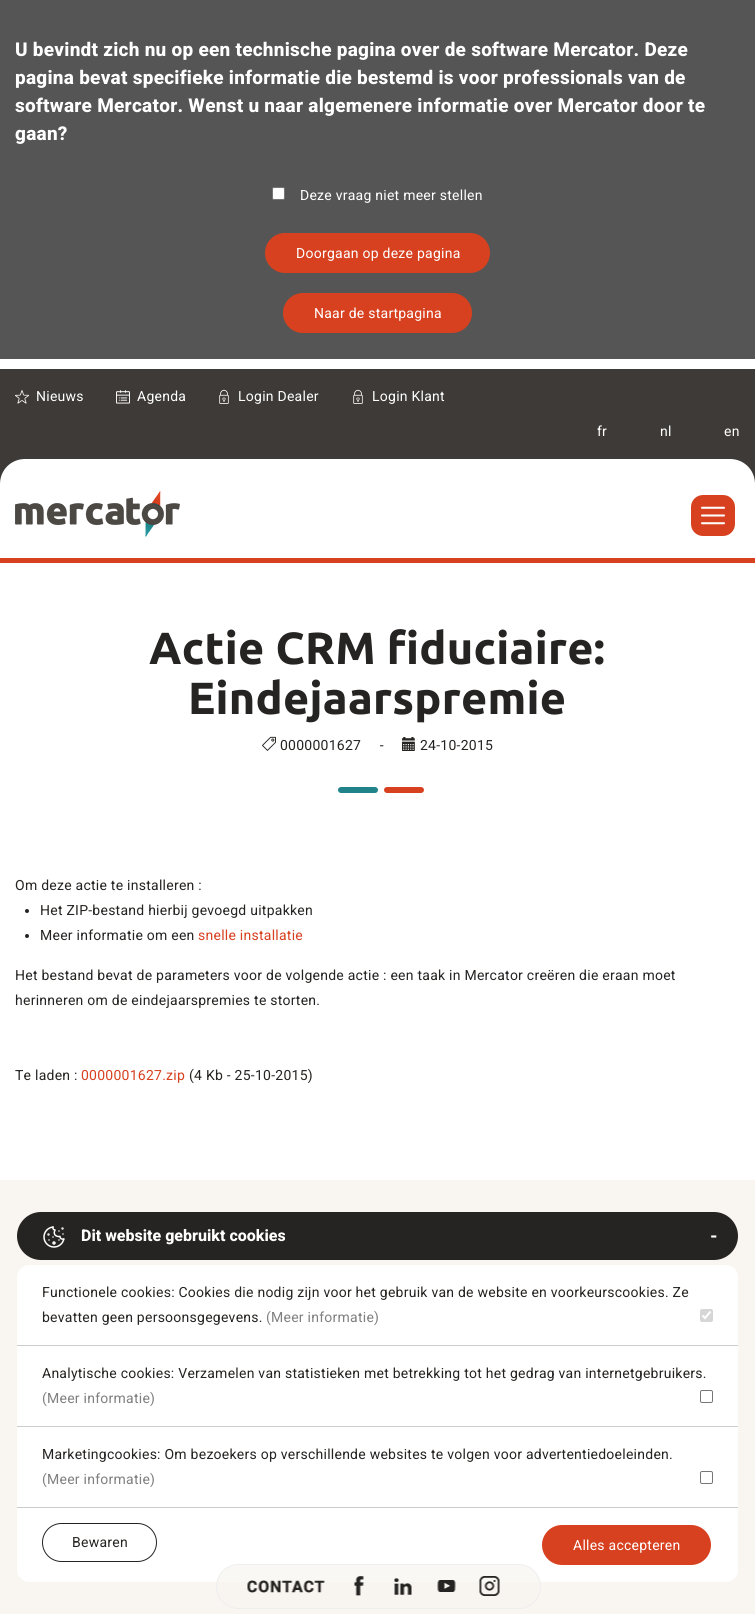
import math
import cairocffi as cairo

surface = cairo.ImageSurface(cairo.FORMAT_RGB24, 755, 1614)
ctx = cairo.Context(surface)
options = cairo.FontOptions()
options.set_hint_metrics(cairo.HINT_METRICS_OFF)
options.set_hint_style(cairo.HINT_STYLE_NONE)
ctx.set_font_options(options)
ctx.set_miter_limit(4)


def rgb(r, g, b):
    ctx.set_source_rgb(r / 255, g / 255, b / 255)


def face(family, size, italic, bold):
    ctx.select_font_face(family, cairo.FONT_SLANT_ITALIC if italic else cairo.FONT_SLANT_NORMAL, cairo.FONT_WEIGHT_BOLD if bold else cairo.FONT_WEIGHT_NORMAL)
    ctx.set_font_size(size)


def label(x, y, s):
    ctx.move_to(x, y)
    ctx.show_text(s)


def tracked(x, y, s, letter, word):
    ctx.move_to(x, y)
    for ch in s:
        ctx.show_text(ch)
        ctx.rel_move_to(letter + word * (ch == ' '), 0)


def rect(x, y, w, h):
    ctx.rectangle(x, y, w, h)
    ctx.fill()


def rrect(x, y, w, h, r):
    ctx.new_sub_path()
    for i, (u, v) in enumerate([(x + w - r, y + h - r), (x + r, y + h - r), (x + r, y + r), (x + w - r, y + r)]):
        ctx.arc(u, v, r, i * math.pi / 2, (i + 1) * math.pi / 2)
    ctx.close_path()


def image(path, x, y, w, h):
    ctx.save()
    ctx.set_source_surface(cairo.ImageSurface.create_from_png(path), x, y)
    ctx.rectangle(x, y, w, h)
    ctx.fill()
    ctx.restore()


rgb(255, 255, 255)
ctx.paint()
rgb(85, 85, 85)
rect(0, 0, 755, 359)
face('Roboto ExtraBold', 19, 0, 0)
rgb(255, 255, 255)
tracked(15, 56, 'U bevindt zich nu op een technische pagina over de software Mercator. Deze', 0.25, 0)
tracked(15, 84, 'pagina bevat specifieke informatie die bestemd is voor professionals van de', 0.25, 0)
tracked(15, 112, 'software Mercator. Wenst u naar algemenere informatie over Mercator door te', 0.25, 0)
tracked(15, 140, 'gaan?', 0.25, 0)
rrect(272.5, 187.5, 12, 12, 1.5)
ctx.fill_preserve()
rgb(118, 118, 118)
ctx.set_line_width(1)
ctx.stroke()
face('Roboto', 14, 0, 0)
rgb(255, 255, 255)
tracked(300, 200, 'Deze vraag niet meer stellen', 0.25, 0)
rgb(215, 65, 32)
rrect(265, 233, 225, 40, 20)
ctx.fill()
rgb(255, 255, 255)
tracked(296, 258, 'Doorgaan op deze pagina', 0.25, 0)
rgb(215, 65, 32)
rrect(283, 293, 189, 40, 20)
ctx.fill()
rgb(255, 255, 255)
tracked(314, 318, 'Naar de startpagina', 0.25, 0)
rgb(61, 58, 55)
rect(0, 369, 755, 115)
image('image0.png', 15, 390, 14, 14)
rgb(255, 255, 255)
tracked(36, 401, 'Nieuws', 0.25, 0)
image('image1.png', 116, 390, 14, 14)
tracked(137, 401, 'Agenda', 0.25, 0)
image('image2.png', 219, 389, 10, 15)
tracked(238, 401, 'Login Dealer', 0.25, 0)
image('image2.png', 353, 389, 10, 15)
tracked(372, 401, 'Login Klant', 0.25, 0)
tracked(597, 436, 'fr', 0.25, 0)
tracked(660, 436, 'nl', 0.25, 0)
tracked(724, 436, 'en', 0.25, 0)
ctx.new_path()
ctx.move_to(25, 459)
ctx.line_to(730, 459)
ctx.curve_to(744, 459, 755, 470, 755, 484)
ctx.line_to(755, 558)
ctx.line_to(0, 558)
ctx.line_to(0, 484)
ctx.curve_to(0, 470, 11, 459, 25, 459)
ctx.close_path()
ctx.fill()
image('image3.png', 15, 491, 165, 46)
rgb(215, 65, 32)
rrect(691, 495, 44, 41, 12)
ctx.fill()
image('image4.png', 701, 506, 24, 19)
rect(0, 558, 755, 5)
face('Ubuntu', 45, 0, 1)
rgb(38, 36, 34)
tracked(149, 664, 'Actie CRM fiduciaire:', 0.25, 0)
tracked(188, 714, 'Eindejaarspremie', 0.25, 0)
image('image5.png', 262, 736, 14, 15)
face('Roboto', 14, 0, 0)
tracked(280, 750, '0000001627     -', 0.25, 0)
image('image6.png', 402, 737, 13, 14)
tracked(420, 750, '24-10-2015', 0.25, 0)
rgb(31, 131, 137)
rrect(338, 787, 40, 6, 3)
ctx.fill()
rgb(215, 65, 32)
rrect(384, 787, 40, 6, 3)
ctx.fill()
rgb(38, 36, 34)
tracked(15, 890, 'Om deze actie te installeren :', 0.25, 0)
ctx.new_path()
ctx.arc(27, 911, 2, 0, 2 * math.pi)
ctx.fill()
tracked(40, 915, 'Het ZIP-bestand hierbij gevoegd uitpakken', 0.25, 0)
ctx.new_path()
ctx.arc(27, 936, 2, 0, 2 * math.pi)
ctx.fill()
tracked(40, 940, 'Meer informatie om een', 0.25, 0)
rgb(215, 65, 32)
tracked(198, 940, 'snelle installatie', 0.25, 0)
rgb(38, 36, 34)
tracked(15, 980, 'Het bestand bevat de parameters voor de volgende actie : een taak in Mercator creëren die eraan moet', 0.25, 0)
tracked(15, 1005, 'herinneren om de eindejaarspremies te storten.', 0.25, 0)
tracked(15, 1080, 'Te laden :', 0.25, 0)
rgb(215, 65, 32)
tracked(81, 1080, '0000001627.zip', 0.25, 0)
rgb(38, 36, 34)
tracked(189, 1080, '(4 Kb - 25-10-2015)', 0.25, 0)
rgb(249, 246, 241)
rect(0, 1180, 755, 434)
rgb(38, 36, 34)
rrect(17, 1212, 721, 48, 24)
ctx.fill()
image('image7.png', 43, 1226, 22, 22)
face('Roboto ExtraBold', 16, 0, 0)
rgb(255, 255, 255)
label(81, 1241, 'Dit website gebruikt cookies')
face('Roboto ExtraBold', 18, 0, 0)
label(710, 1242, '-')
ctx.new_path()
ctx.move_to(29, 1265)
ctx.line_to(726, 1265)
ctx.curve_to(732.5, 1265, 738, 1270.5, 738, 1277)
ctx.line_to(738, 1346)
ctx.line_to(17, 1346)
ctx.line_to(17, 1277)
ctx.curve_to(17, 1270.5, 22.5, 1265, 29, 1265)
ctx.close_path()
ctx.fill()
rgb(204, 204, 204)
rect(17, 1345, 721, 1)
face('Roboto', 14, 0, 0)
rgb(38, 36, 34)
tracked(42, 1297, 'Functionele cookies: Cookies die nodig zijn voor het gebruik van de website en voorkeurscookies. Ze', 0.25, 0)
tracked(42, 1322, 'bevatten geen persoonsgegevens.', 0.25, 0)
rgb(128, 128, 128)
tracked(266, 1322, '(Meer informatie)', 0.25, 0)
rgb(214, 214, 214)
rrect(700, 1309, 13, 13, 2)
ctx.fill()
ctx.new_path()
ctx.move_to(702.5, 1315.5)
ctx.line_to(705, 1318)
ctx.line_to(710.5, 1311.5)
rgb(255, 255, 255)
ctx.set_line_width(2.1)
ctx.stroke()
rect(17, 1346, 721, 80)
rgb(204, 204, 204)
rect(17, 1426, 721, 1)
rgb(38, 36, 34)
tracked(42, 1378, 'Analytische cookies: Verzamelen van statistieken met betrekking tot het gedrag van internetgebruikers.', 0.25, 0)
rgb(128, 128, 128)
tracked(42, 1403, '(Meer informatie)', 0.25, 0)
rrect(700.5, 1390.5, 12, 12, 1.5)
rgb(118, 118, 118)
ctx.set_line_width(1)
ctx.stroke()
rgb(255, 255, 255)
rect(17, 1427, 721, 80)
rgb(204, 204, 204)
rect(17, 1507, 721, 1)
rgb(38, 36, 34)
tracked(42, 1459, 'Marketingcookies: Om bezoekers op verschillende websites te volgen voor advertentiedoeleinden.', 0.25, 0)
rgb(128, 128, 128)
tracked(42, 1484, '(Meer informatie)', 0.25, 0)
rrect(700.5, 1471.5, 12, 12, 1.5)
rgb(118, 118, 118)
ctx.stroke()
rgb(255, 255, 255)
ctx.new_path()
ctx.move_to(17, 1508)
ctx.line_to(738, 1508)
ctx.line_to(738, 1570)
ctx.curve_to(738, 1576.5, 732.5, 1582, 726, 1582)
ctx.line_to(29, 1582)
ctx.curve_to(22.5, 1582, 17, 1576.5, 17, 1570)
ctx.close_path()
ctx.fill()
rrect(42.5, 1523.5, 114, 38, 19)
rgb(38, 36, 34)
ctx.stroke()
tracked(72, 1547, 'Bewaren', 0.25, 0)
rgb(215, 65, 32)
rrect(542, 1525, 169, 40, 20)
ctx.fill()
rgb(255, 255, 255)
tracked(573, 1550, 'Alles accepteren', 0.25, 0)
ctx.set_source_rgba(0.976, 0.965, 0.945, 0.7)
rrect(216.5, 1564.5, 324, 44, 22)
ctx.fill_preserve()
rgb(238, 238, 238)
ctx.stroke()
image('image8.png', 247, 1580, 78, 13)
image('image9.png', 354, 1576, 10, 20)
image('image10.png', 394, 1578, 18, 17)
image('image11.png', 437, 1580, 19, 12)
image('image12.png', 479, 1576, 21, 20)
surface.write_to_png('render.png')
